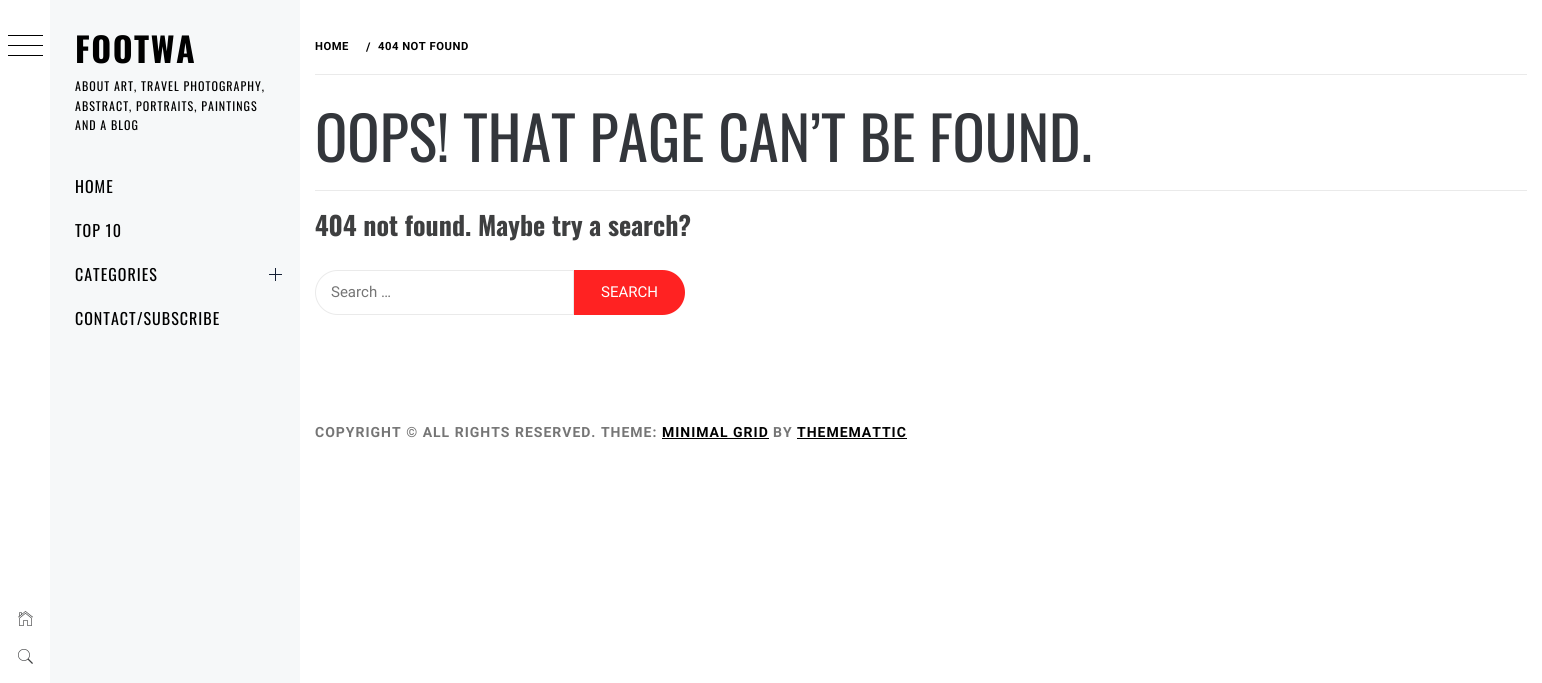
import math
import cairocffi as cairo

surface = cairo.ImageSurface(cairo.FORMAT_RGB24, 1542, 683)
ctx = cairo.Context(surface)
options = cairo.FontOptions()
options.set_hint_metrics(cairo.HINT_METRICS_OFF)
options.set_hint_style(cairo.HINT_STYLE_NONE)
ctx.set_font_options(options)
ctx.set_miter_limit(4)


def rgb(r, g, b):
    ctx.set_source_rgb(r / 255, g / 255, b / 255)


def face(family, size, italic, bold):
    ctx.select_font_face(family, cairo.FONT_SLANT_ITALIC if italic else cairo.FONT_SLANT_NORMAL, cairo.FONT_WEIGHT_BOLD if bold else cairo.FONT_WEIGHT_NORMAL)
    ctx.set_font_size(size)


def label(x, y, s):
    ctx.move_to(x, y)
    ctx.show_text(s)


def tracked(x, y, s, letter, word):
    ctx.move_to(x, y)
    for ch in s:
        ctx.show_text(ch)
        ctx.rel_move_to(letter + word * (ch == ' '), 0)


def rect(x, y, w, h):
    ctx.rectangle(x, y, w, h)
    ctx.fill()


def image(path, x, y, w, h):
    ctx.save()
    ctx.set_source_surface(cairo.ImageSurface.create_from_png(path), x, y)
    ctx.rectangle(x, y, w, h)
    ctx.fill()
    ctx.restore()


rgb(255, 255, 255)
ctx.paint()
rgb(0, 0, 0)
rect(8, 35, 35, 1)
rect(8, 45, 35, 1)
rect(8, 55, 35, 1)
image('image0.png', 18, 611, 15, 15)
image('image1.png', 18, 649, 15, 15)
rgb(246, 248, 249)
rect(50, 0, 250, 683)
face('Oswald', 34, 0, 1)
rgb(0, 0, 0)
tracked(75, 63, 'FOOTWA', 1.5, 0)
face('Oswald', 12, 0, 0)
tracked(75, 91, 'ABOUT ART, TRAVEL PHOTOGRAPHY,', 1, 0)
tracked(75, 111, 'ABSTRACT, PORTRAITS, PAINTINGS', 1, 0)
tracked(75, 130, 'AND A BLOG', 1, 0)
face('Oswald', 16, 0, 0)
tracked(75, 193, 'HOME', 1, 0)
tracked(75, 237, 'TOP 10', 1, 0)
tracked(75, 281, 'CATEGORIES', 1, 0)
rgb(21, 32, 53)
rect(269, 274, 13, 1)
rect(275, 268, 1, 13)
rgb(0, 0, 0)
tracked(75, 325, 'CONTACT/SUBSCRIBE', 1, 0)
rgb(234, 234, 234)
rect(315, 190, 1212, 1)
rect(315, 74, 1212, 1)
face('Roboto', 11.25, 0, 1)
rgb(0, 0, 0)
tracked(315, 50, 'HOME', 0.5, 0)
face('Roboto', 12, 0, 1)
tracked(366, 51, '/', 0.5, 0)
face('Roboto', 11.25, 0, 1)
tracked(378, 50, '404 NOT FOUND', 0.5, 0)
face('Oswald', 60, 0, 0)
rgb(51, 54, 59)
label(315, 162, 'OOPS! THAT PAGE CAN’T BE FOUND.')
face('Oswald', 26, 0, 1)
rgb(62, 63, 64)
label(315, 236, '404 not found. Maybe try a search?')
ctx.new_path()
ctx.move_to(337.5, 270.5)
ctx.line_to(573.5, 270.5)
ctx.line_to(573.5, 314.5)
ctx.line_to(337.5, 314.5)
ctx.curve_to(325.5, 314.5, 315.5, 304.5, 315.5, 292.5)
ctx.curve_to(315.5, 280.5, 325.5, 270.5, 337.5, 270.5)
ctx.close_path()
rgb(234, 234, 234)
ctx.set_line_width(1)
ctx.stroke()
face('Roboto', 15, 0, 0)
rgb(117, 117, 117)
label(331, 297, 'Search …')
rgb(255, 34, 34)
ctx.new_path()
ctx.move_to(574, 270)
ctx.line_to(662.5, 270)
ctx.curve_to(675, 270, 685, 280, 685, 292.5)
ctx.curve_to(685, 305, 675, 315, 662.5, 315)
ctx.line_to(574, 315)
ctx.close_path()
ctx.fill()
rgb(255, 255, 255)
label(601, 297, 'SEARCH')
face('Roboto', 14, 0, 1)
rgb(117, 117, 117)
tracked(315, 437, 'COPYRIGHT © ALL RIGHTS RESERVED. THEME:', 1, 0)
rgb(0, 0, 0)
tracked(662, 437, 'MINIMAL GRID', 1, 0)
rect(662, 438, 107, 1)
rgb(117, 117, 117)
tracked(773, 437, 'BY', 1, 0)
rgb(0, 0, 0)
tracked(797, 437, 'THEMEMATTIC', 1, 0)
rect(797, 438, 110, 1)
surface.write_to_png('render.png')
